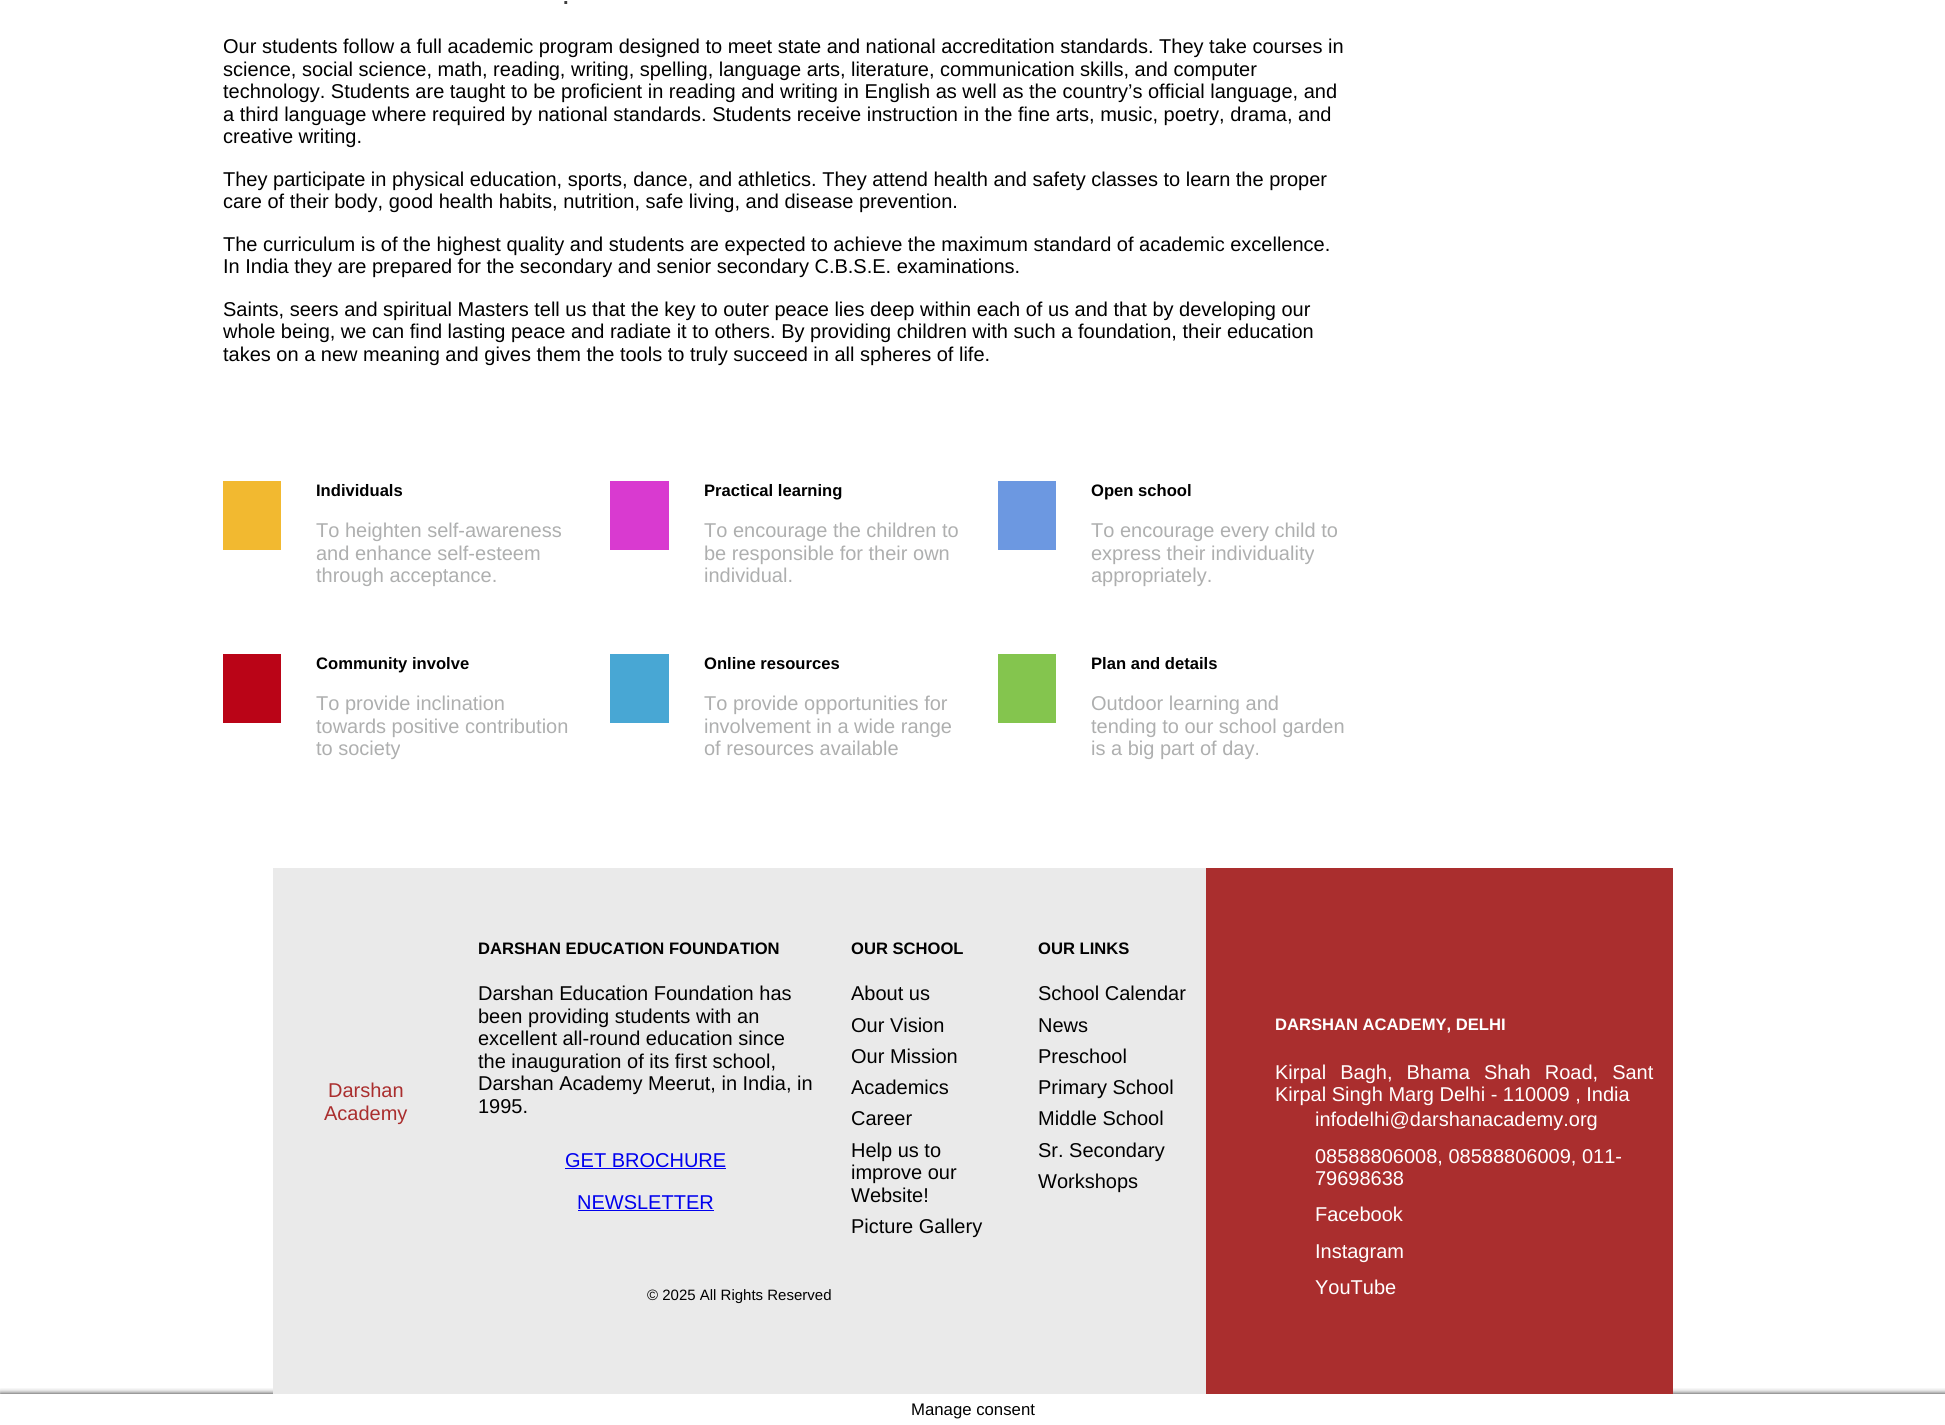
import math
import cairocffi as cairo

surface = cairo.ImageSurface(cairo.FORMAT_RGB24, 1945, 1425)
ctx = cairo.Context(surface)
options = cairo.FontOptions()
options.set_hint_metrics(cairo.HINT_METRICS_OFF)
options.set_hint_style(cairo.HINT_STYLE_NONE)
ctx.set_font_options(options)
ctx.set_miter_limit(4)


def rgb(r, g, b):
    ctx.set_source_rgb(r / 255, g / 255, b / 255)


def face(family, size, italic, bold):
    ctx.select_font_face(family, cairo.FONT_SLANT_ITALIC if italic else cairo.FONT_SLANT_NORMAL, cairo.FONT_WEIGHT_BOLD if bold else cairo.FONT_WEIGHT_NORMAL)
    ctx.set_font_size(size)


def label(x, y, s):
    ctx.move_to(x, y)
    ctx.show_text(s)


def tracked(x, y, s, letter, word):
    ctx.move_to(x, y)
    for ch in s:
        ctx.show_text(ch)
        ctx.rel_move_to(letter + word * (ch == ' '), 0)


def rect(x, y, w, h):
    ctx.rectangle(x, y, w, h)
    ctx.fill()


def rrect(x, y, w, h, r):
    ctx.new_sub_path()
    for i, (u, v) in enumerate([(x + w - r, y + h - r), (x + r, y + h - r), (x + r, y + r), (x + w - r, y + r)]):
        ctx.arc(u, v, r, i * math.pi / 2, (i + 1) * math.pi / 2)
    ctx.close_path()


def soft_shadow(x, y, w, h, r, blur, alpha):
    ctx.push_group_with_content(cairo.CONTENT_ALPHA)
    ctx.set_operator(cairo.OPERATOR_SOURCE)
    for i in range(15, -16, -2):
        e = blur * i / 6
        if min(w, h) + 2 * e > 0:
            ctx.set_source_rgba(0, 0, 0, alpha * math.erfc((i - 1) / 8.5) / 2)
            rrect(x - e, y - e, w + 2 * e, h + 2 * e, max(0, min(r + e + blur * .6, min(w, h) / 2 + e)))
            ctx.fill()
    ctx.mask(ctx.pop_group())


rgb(255, 255, 255)
ctx.paint()
face('Liberation Sans', 20, 0, 1)
rgb(61, 61, 61)
label(563, 4, '.')
face('Liberation Sans', 20, 0, 0)
rgb(0, 0, 0)
label(223, 53, 'Our students follow a full academic program designed to meet state and national accreditation standards. They take courses in')
label(223, 76, 'science, social science, math, reading, writing, spelling, language arts, literature, communication skills, and computer')
label(223, 98, 'technology. Students are taught to be proficient in reading and writing in English as well as the country’s official language, and')
label(223, 121, 'a third language where required by national standards. Students receive instruction in the fine arts, music, poetry, drama, and')
label(223, 143, 'creative writing.')
label(223, 186, 'They participate in physical education, sports, dance, and athletics. They attend health and safety classes to learn the proper')
label(223, 208, 'care of their body, good health habits, nutrition, safe living, and disease prevention.')
label(223, 251, 'The curriculum is of the highest quality and students are expected to achieve the maximum standard of academic excellence.')
label(223, 273, 'In India they are prepared for the secondary and senior secondary C.B.S.E. examinations.')
label(223, 316, 'Saints, seers and spiritual Masters tell us that the key to outer peace lies deep within each of us and that by developing our')
label(223, 338, 'whole being, we can find lasting peace and radiate it to others. By providing children with such a foundation, their education')
label(223, 361, 'takes on a new meaning and gives them the tools to truly succeed in all spheres of life.')
rgb(242, 185, 48)
rect(223, 481, 58, 69)
face('Liberation Sans', 16.6, 0, 1)
rgb(0, 0, 0)
label(316, 496, 'Individuals')
face('Liberation Sans', 20, 0, 0)
rgb(174, 175, 175)
label(316, 537, 'To heighten self-awareness')
label(316, 560, 'and enhance self-esteem')
label(316, 582, 'through acceptance.')
rgb(217, 58, 208)
rect(610, 481, 59, 69)
face('Liberation Sans', 16.6, 0, 1)
rgb(0, 0, 0)
label(704, 496, 'Practical learning')
face('Liberation Sans', 20, 0, 0)
rgb(174, 175, 175)
label(704, 537, 'To encourage the children to')
label(704, 560, 'be responsible for their own')
label(704, 582, 'individual.')
rgb(108, 152, 225)
rect(998, 481, 58, 69)
face('Liberation Sans', 16.6, 0, 1)
rgb(0, 0, 0)
label(1091, 496, 'Open school')
face('Liberation Sans', 20, 0, 0)
rgb(174, 175, 175)
label(1091, 537, 'To encourage every child to')
label(1091, 560, 'express their individuality')
label(1091, 582, 'appropriately.')
rgb(186, 4, 23)
rect(223, 654, 58, 69)
face('Liberation Sans', 16.6, 0, 1)
rgb(0, 0, 0)
label(316, 669, 'Community involve')
face('Liberation Sans', 20, 0, 0)
rgb(174, 175, 175)
label(316, 710, 'To provide inclination')
label(316, 733, 'towards positive contribution')
label(316, 755, 'to society')
rgb(72, 167, 212)
rect(610, 654, 59, 69)
face('Liberation Sans', 16.6, 0, 1)
rgb(0, 0, 0)
label(704, 669, 'Online resources')
face('Liberation Sans', 20, 0, 0)
rgb(174, 175, 175)
label(704, 710, 'To provide opportunities for')
label(704, 733, 'involvement in a wide range')
label(704, 755, 'of resources available')
rgb(132, 197, 78)
rect(998, 654, 58, 69)
face('Liberation Sans', 16.6, 0, 1)
rgb(0, 0, 0)
label(1091, 669, 'Plan and details')
face('Liberation Sans', 20, 0, 0)
rgb(174, 175, 175)
label(1091, 710, 'Outdoor learning and')
label(1091, 733, 'tending to our school garden')
label(1091, 755, 'is a big part of day.')
ctx.save()
ctx.rectangle(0, 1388, 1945, 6)
ctx.clip()
rgb(22, 22, 22)
soft_shadow(0, 1394, 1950, 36, 0, 3, 1)
ctx.restore()
rgb(170, 46, 46)
rect(1206, 868, 467, 526)
rgb(234, 234, 234)
rect(273, 868, 933, 526)
rgb(170, 46, 46)
label(328, 1097, 'Darshan')
label(324, 1120, 'Academy')
face('Liberation Sans', 16.6, 0, 1)
rgb(0, 0, 0)
label(478, 954, 'DARSHAN EDUCATION FOUNDATION')
face('Liberation Sans', 20, 0, 0)
label(478, 1000, 'Darshan Education Foundation has')
label(478, 1023, 'been providing students with an')
label(478, 1045, 'excellent all-round education since')
label(478, 1068, 'the inauguration of its first school,')
label(478, 1090, 'Darshan Academy Meerut, in India, in')
label(478, 1113, '1995.')
rgb(0, 0, 238)
label(565, 1167, 'GET BROCHURE')
rect(565, 1168, 161, 1)
label(577, 1209, 'NEWSLETTER')
rect(578, 1210, 136, 1)
face('Liberation Sans', 16.6, 0, 1)
rgb(0, 0, 0)
label(851, 954, 'OUR SCHOOL')
face('Liberation Sans', 20, 0, 0)
label(851, 1000, 'About us')
label(851, 1032, 'Our Vision')
label(851, 1063, 'Our Mission')
label(851, 1094, 'Academics')
label(851, 1125, 'Career')
label(851, 1157, 'Help us to')
label(851, 1179, 'improve our')
label(851, 1202, 'Website!')
label(851, 1233, 'Picture Gallery')
face('Liberation Sans', 16.6, 0, 1)
label(1038, 954, 'OUR LINKS')
face('Liberation Sans', 20, 0, 0)
label(1038, 1000, 'School Calendar')
label(1038, 1032, 'News')
label(1038, 1063, 'Preschool')
label(1038, 1094, 'Primary School')
label(1038, 1125, 'Middle School')
label(1038, 1157, 'Sr. Secondary')
label(1038, 1188, 'Workshops')
face('Liberation Sans', 15, 0, 0)
label(647, 1300, '© 2025 All Rights Reserved')
face('Liberation Sans', 16.6, 0, 1)
rgb(255, 255, 255)
label(1275, 1030, 'DARSHAN ACADEMY, DELHI')
face('Liberation Sans', 20, 0, 0)
tracked(1275, 1079, 'Kirpal Bagh, Bhama Shah Road, Sant', 0, 8.5)
label(1275, 1101, 'Kirpal Singh Marg Delhi - 110009 , India')
label(1315, 1126, 'infodelhi@darshanacademy.org')
label(1315, 1163, '08588806008, 08588806009, 011-')
label(1315, 1185, '79698638')
label(1315, 1221, 'Facebook')
label(1315, 1258, 'Instagram')
label(1315, 1294, 'YouTube')
face('Liberation Sans', 16.75, 0, 0)
rgb(0, 0, 0)
label(911, 1415, 'Manage consent')
surface.write_to_png('render.png')
